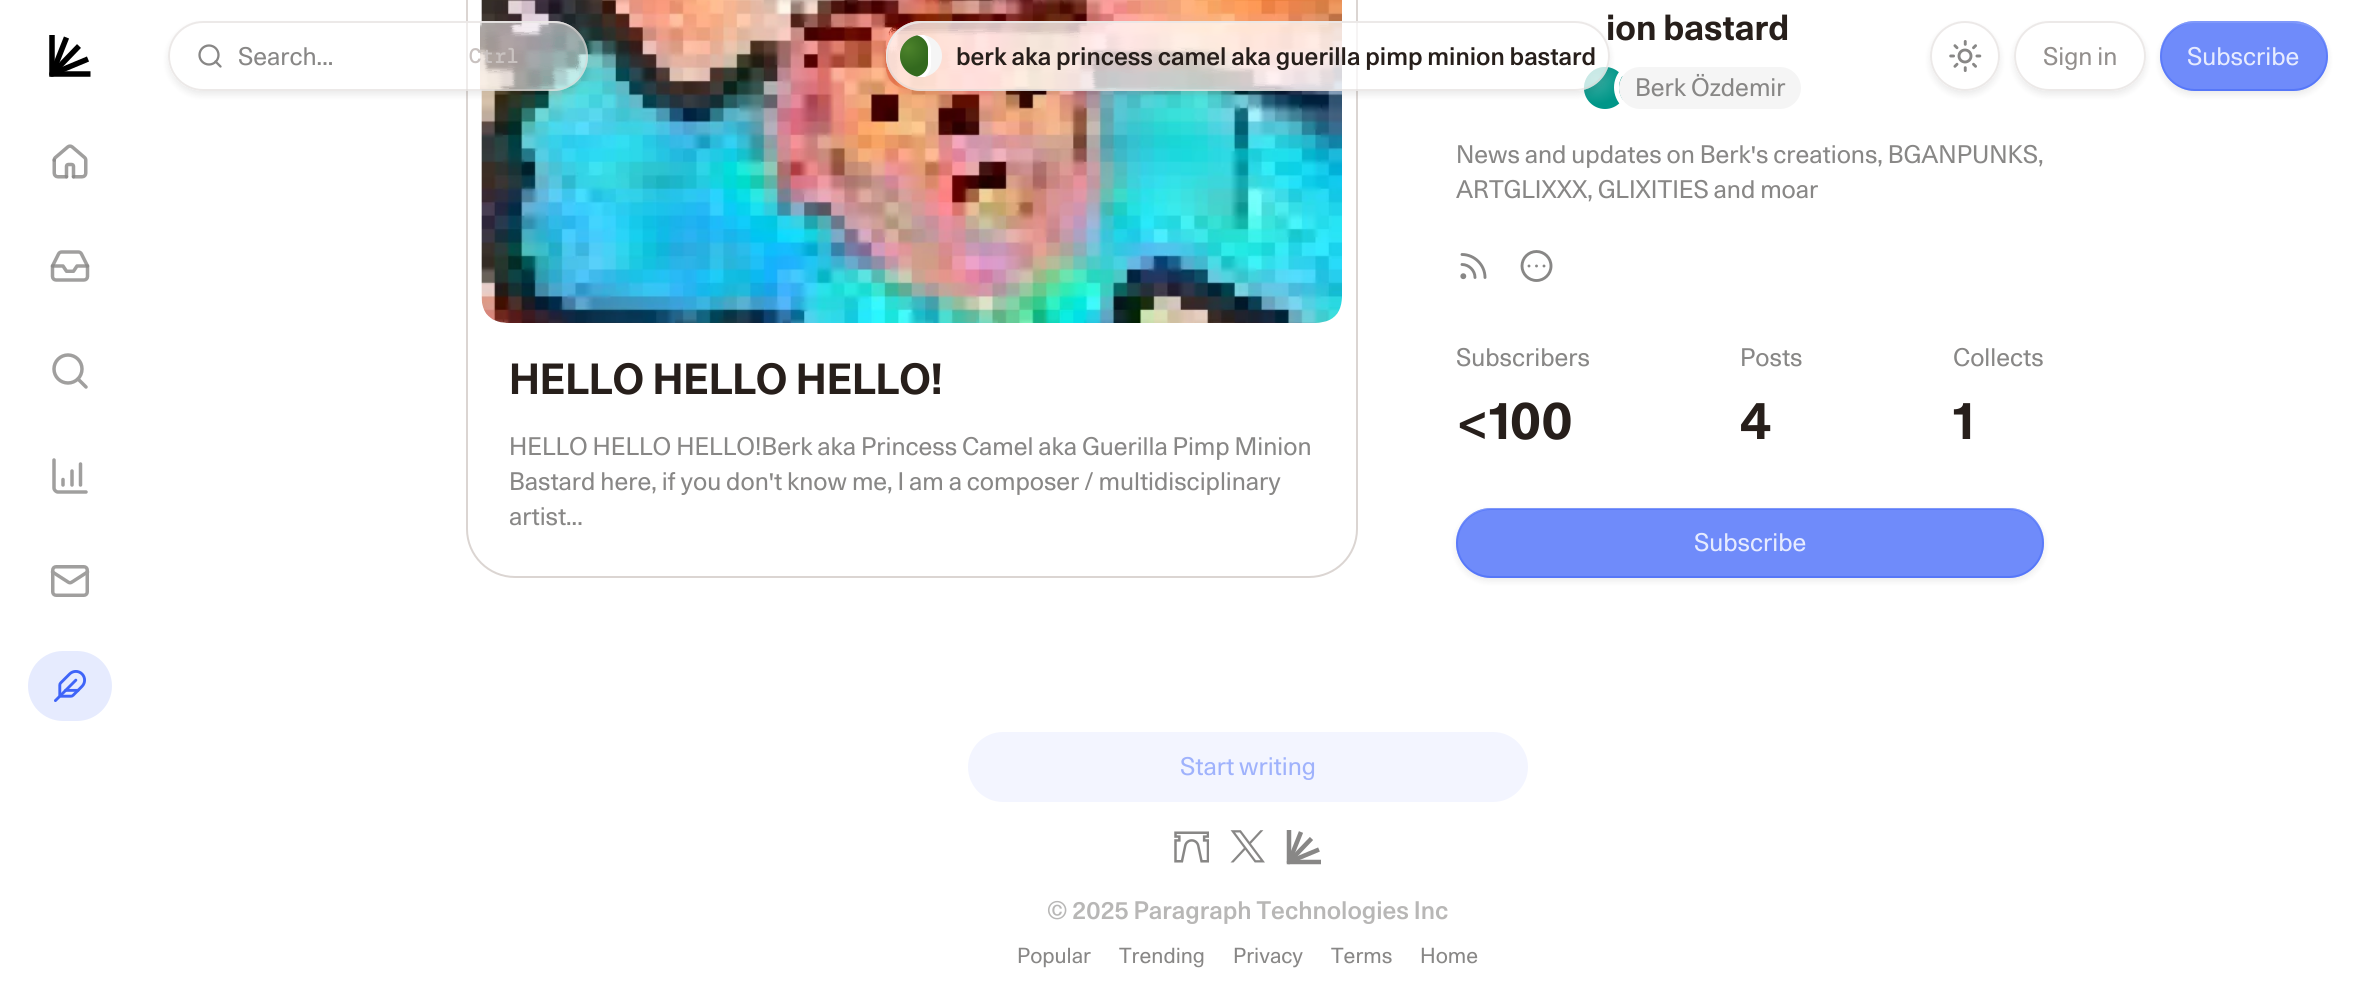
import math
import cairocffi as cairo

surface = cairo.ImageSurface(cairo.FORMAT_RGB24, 2355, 996)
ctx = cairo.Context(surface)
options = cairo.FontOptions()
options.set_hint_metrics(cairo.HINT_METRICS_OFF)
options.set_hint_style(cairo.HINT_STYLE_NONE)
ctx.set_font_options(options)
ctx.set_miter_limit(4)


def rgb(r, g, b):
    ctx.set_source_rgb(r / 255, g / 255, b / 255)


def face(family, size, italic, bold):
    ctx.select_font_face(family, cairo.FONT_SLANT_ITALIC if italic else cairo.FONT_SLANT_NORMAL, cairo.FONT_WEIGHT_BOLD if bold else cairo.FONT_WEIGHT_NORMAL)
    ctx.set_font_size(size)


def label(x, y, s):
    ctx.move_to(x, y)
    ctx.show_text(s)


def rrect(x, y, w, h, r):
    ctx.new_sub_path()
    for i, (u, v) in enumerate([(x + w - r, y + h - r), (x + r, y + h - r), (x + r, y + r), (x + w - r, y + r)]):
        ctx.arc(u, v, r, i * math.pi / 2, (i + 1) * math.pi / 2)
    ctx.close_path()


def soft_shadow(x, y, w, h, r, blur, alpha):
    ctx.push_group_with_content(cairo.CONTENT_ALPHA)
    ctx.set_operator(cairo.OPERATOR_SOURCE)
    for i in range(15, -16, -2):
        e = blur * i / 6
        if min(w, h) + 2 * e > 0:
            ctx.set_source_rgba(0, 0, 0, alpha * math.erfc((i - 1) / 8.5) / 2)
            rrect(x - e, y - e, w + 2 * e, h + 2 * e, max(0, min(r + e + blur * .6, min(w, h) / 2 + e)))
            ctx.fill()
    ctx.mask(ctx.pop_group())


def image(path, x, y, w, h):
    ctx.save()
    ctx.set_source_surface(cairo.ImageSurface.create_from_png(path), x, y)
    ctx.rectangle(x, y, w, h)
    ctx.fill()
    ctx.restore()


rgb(255, 255, 255)
ctx.paint()
ctx.new_path()
ctx.move_to(52, 35)
ctx.line_to(52, 74)
ctx.line_to(90.5, 74)
rgb(0, 0, 0)
ctx.set_line_width(5.5)
ctx.stroke()
ctx.new_path()
ctx.move_to(66.5, 37.5)
ctx.line_to(52, 74)
ctx.line_to(88, 59)
ctx.set_line_join(cairo.LINE_JOIN_ROUND)
ctx.stroke()
ctx.new_path()
ctx.move_to(52, 74)
ctx.line_to(79, 46)
ctx.set_line_join(cairo.LINE_JOIN_MITER)
ctx.stroke()
image('image0.png', 52, 144, 36, 35)
image('image1.png', 50, 250, 40, 32)
ctx.arc(68, 369, 14, 0, 2 * math.pi)
rgb(160, 159, 158)
ctx.set_line_width(3.5)
ctx.stroke()
ctx.new_path()
ctx.move_to(86, 387)
ctx.line_to(78, 379)
ctx.set_line_cap(cairo.LINE_CAP_ROUND)
ctx.set_line_join(cairo.LINE_JOIN_ROUND)
ctx.stroke()
ctx.new_path()
ctx.move_to(72, 485)
ctx.line_to(72, 471)
ctx.move_to(80.5, 485)
ctx.line_to(80.5, 464)
ctx.move_to(54, 460)
ctx.line_to(54, 488)
ctx.curve_to(54, 490, 56, 492, 58, 492)
ctx.line_to(86, 492)
ctx.move_to(63, 485)
ctx.line_to(63, 479.5)
ctx.stroke()
rrect(52.75, 566.75, 34.5, 28.5, 3.25)
ctx.set_line_cap(cairo.LINE_CAP_BUTT)
ctx.set_line_join(cairo.LINE_JOIN_MITER)
ctx.stroke()
ctx.new_path()
ctx.move_to(87.5, 572)
ctx.line_to(72, 582)
ctx.curve_to(70.5, 583, 69.5, 583, 68, 582)
ctx.line_to(52.5, 572)
ctx.set_line_cap(cairo.LINE_CAP_ROUND)
ctx.set_line_join(cairo.LINE_JOIN_ROUND)
ctx.stroke()
rgb(230, 235, 254)
rrect(28, 651, 84, 70, 35)
ctx.fill()
image('image2.png', 54, 670, 32, 32)
rrect(467, -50, 890, 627, 48)
rgb(219, 213, 210)
ctx.set_line_width(2)
ctx.set_line_cap(cairo.LINE_CAP_BUTT)
ctx.set_line_join(cairo.LINE_JOIN_MITER)
ctx.stroke()
image('image3.png', 480, 0, 862, 323)
face('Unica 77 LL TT', 42, 0, 1)
rgb(39, 31, 27)
label(509, 394, 'HELLO HELLO HELLO!')
face('Unica 77 LL TT', 24.5, 0, 0)
rgb(136, 135, 134)
label(509, 455, 'HELLO HELLO HELLO!Berk aka Princess Camel aka Guerilla Pimp Minion')
label(509, 490, 'Bastard here, if you don\'t know me, I am a composer / multidisciplinary')
label(509, 525, 'artist...')
face('Unica 77 LL TT', 35, 0, 1)
rgb(39, 31, 27)
label(1606, 40, 'ion bastard')
rgb(0, 150, 136)
ctx.new_path()
ctx.arc(1605, 88, 21, 0, 2 * math.pi)
ctx.fill()
gradient = cairo.RadialGradient(1596, 79, 0, 1596, 79, 42)
gradient.add_color_stop_rgba(0, 0.302, 0.714, 0.675, 0.75)
gradient.add_color_stop_rgba(0.6, 0.302, 0.714, 0.675, 0)
ctx.set_source(gradient)
ctx.arc(1605, 88, 21, 0, 2 * math.pi)
ctx.fill()
rrect(1616.5, 63.5, 187, 48, 24)
rgb(255, 255, 255)
ctx.set_line_width(5)
ctx.stroke()
rgb(245, 245, 245)
rrect(1619, 67, 182, 42, 21)
ctx.fill()
ctx.save()
ctx.rectangle(1635, 70, 150, 35)
ctx.clip()
face('Unica 77 LL TT', 24.5, 0, 0)
rgb(136, 135, 134)
label(1635, 96, 'Berk Özdemir')
ctx.restore()
face('Unica 77 LL TT', 24.5, 0, 0)
rgb(136, 135, 134)
label(1456, 163, 'News and updates on Berk\'s creations, BGANPUNKS,')
label(1456, 198, 'ARTGLIXXX, GLIXITIES and moar')
ctx.new_path()
ctx.move_to(1462, 264.5)
ctx.curve_to(1469, 264.5, 1475, 270.5, 1475, 277.5)
ctx.move_to(1462, 254.5)
ctx.curve_to(1474.5, 254.5, 1485, 265, 1485, 277.5)
ctx.set_line_width(2.9)
ctx.set_line_cap(cairo.LINE_CAP_ROUND)
ctx.set_line_join(cairo.LINE_JOIN_ROUND)
ctx.stroke()
ctx.arc(1463.3, 276.2, 1.5, 0, 2 * math.pi)
ctx.set_line_cap(cairo.LINE_CAP_BUTT)
ctx.set_line_join(cairo.LINE_JOIN_MITER)
ctx.stroke()
ctx.arc(1536.5, 266, 14.5, 0, 2 * math.pi)
ctx.stroke()
ctx.new_path()
ctx.move_to(1544, 266)
ctx.line_to(1544, 266)
ctx.move_to(1536.5, 266)
ctx.line_to(1536.5, 266)
ctx.move_to(1529, 266)
ctx.line_to(1529, 266)
ctx.set_line_cap(cairo.LINE_CAP_ROUND)
ctx.set_line_join(cairo.LINE_JOIN_ROUND)
ctx.stroke()
label(1456, 366, 'Subscribers')
face('Unica 77 LL TT', 52.5, 0, 1)
rgb(39, 31, 27)
label(1456, 439, '<100')
face('Unica 77 LL TT', 24.5, 0, 0)
rgb(136, 135, 134)
label(1740, 366, 'Posts')
face('Unica 77 LL TT', 52.5, 0, 1)
rgb(39, 31, 27)
label(1740, 439, '4')
face('Unica 77 LL TT', 24.5, 0, 0)
rgb(136, 135, 134)
label(1953, 366, 'Collects')
face('Unica 77 LL TT', 52.5, 0, 1)
rgb(39, 31, 27)
label(1953, 439, '1')
ctx.save()
ctx.set_fill_rule(cairo.FILL_RULE_EVEN_ODD)
ctx.new_path()
ctx.move_to(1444, 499)
ctx.line_to(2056, 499)
ctx.line_to(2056, 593)
ctx.line_to(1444, 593)
ctx.close_path()
ctx.move_to(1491, 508)
ctx.line_to(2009, 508)
ctx.curve_to(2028.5, 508, 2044, 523.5, 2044, 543)
ctx.curve_to(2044, 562.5, 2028.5, 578, 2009, 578)
ctx.line_to(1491, 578)
ctx.curve_to(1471.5, 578, 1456, 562.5, 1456, 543)
ctx.curve_to(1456, 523.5, 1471.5, 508, 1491, 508)
ctx.close_path()
ctx.clip()
rgb(0, 0, 0)
soft_shadow(1456, 511, 588, 70, 35, 3.5, 0.08)
ctx.restore()
ctx.set_source_rgba(0.247, 0.392, 0.973, 0.75)
rrect(1456, 508, 588, 70, 35)
ctx.fill()
ctx.set_source_rgba(0.247, 0.392, 0.973, 0.2)
ctx.new_path()
ctx.move_to(1456, 542)
ctx.curve_to(1455, 562, 1472, 578, 1491, 578)
ctx.line_to(2009, 578)
ctx.curve_to(2028, 578, 2045, 562, 2044, 542)
ctx.curve_to(2043, 561, 2028, 576, 2009, 576)
ctx.line_to(1491, 576)
ctx.curve_to(1472, 576, 1457, 561, 1456, 542)
ctx.close_path()
ctx.fill()
ctx.set_source_rgba(0.902, 0.922, 0.996, 0.5)
ctx.new_path()
ctx.move_to(1491, 509)
ctx.curve_to(1472, 509, 1456, 525, 1456, 544)
ctx.curve_to(1456, 524, 1472, 508, 1491, 508)
ctx.line_to(2009, 508)
ctx.curve_to(2028, 508, 2044, 524, 2044, 544)
ctx.curve_to(2044, 525, 2028, 509, 2009, 509)
ctx.close_path()
ctx.fill()
rrect(1457, 509, 586, 68, 34)
ctx.set_source_rgba(0.247, 0.392, 0.973, 0.4)
ctx.set_line_width(2)
ctx.set_line_cap(cairo.LINE_CAP_BUTT)
ctx.set_line_join(cairo.LINE_JOIN_MITER)
ctx.stroke()
face('Unica 77 LL TT', 24.5, 0, 0)
rgb(230, 235, 254)
label(1694, 551, 'Subscribe')
ctx.save()
ctx.set_fill_rule(cairo.FILL_RULE_EVEN_ODD)
ctx.new_path()
ctx.move_to(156, 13)
ctx.line_to(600, 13)
ctx.line_to(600, 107)
ctx.line_to(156, 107)
ctx.close_path()
ctx.move_to(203, 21)
ctx.line_to(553, 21)
ctx.curve_to(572.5, 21, 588, 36.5, 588, 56)
ctx.curve_to(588, 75.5, 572.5, 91, 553, 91)
ctx.line_to(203, 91)
ctx.curve_to(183.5, 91, 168, 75.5, 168, 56)
ctx.curve_to(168, 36.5, 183.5, 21, 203, 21)
ctx.close_path()
ctx.clip()
rgb(0, 0, 0)
soft_shadow(168, 25, 420, 70, 35, 3.5, 0.08)
ctx.restore()
ctx.set_source_rgba(1, 1, 1, 0.55)
rrect(168, 21, 420, 70, 35)
ctx.fill()
ctx.set_source_rgba(1, 1, 1, 0.8)
ctx.new_path()
ctx.move_to(205, 23)
ctx.curve_to(174, 23, 159, 59, 179, 81)
ctx.curve_to(172, 75, 168, 66, 168, 56)
ctx.curve_to(168, 37, 184, 21, 203, 21)
ctx.line_to(553, 21)
ctx.curve_to(563, 21, 572, 25, 578, 32)
ctx.curve_to(572, 26, 564, 23, 555, 23)
ctx.close_path()
ctx.fill()
rrect(169, 22, 418, 68, 34)
ctx.set_source_rgba(0.859, 0.835, 0.824, 0.5)
ctx.stroke()
ctx.arc(209, 55, 9.5, 0, 2 * math.pi)
rgb(136, 135, 134)
ctx.set_line_width(2.3)
ctx.stroke()
ctx.new_path()
ctx.move_to(220.5, 66.5)
ctx.line_to(215.5, 61.5)
ctx.set_line_cap(cairo.LINE_CAP_ROUND)
ctx.set_line_join(cairo.LINE_JOIN_ROUND)
ctx.stroke()
label(238, 65, 'Search...')
face('DM Mono Medium', 21, 0, 0)
rgb(201, 194, 192)
label(469, 63, 'Ctrl')
ctx.save()
ctx.set_fill_rule(cairo.FILL_RULE_EVEN_ODD)
ctx.new_path()
ctx.move_to(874, 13)
ctx.line_to(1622, 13)
ctx.line_to(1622, 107)
ctx.line_to(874, 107)
ctx.close_path()
ctx.move_to(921, 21)
ctx.line_to(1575, 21)
ctx.curve_to(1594.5, 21, 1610, 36.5, 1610, 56)
ctx.curve_to(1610, 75.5, 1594.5, 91, 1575, 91)
ctx.line_to(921, 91)
ctx.curve_to(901.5, 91, 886, 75.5, 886, 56)
ctx.curve_to(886, 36.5, 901.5, 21, 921, 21)
ctx.close_path()
ctx.clip()
rgb(0, 0, 0)
soft_shadow(886, 25, 724, 70, 35, 3.5, 0.08)
ctx.restore()
ctx.set_source_rgba(1, 1, 1, 0.75)
rrect(886, 21, 724, 70, 35)
ctx.fill()
ctx.set_source_rgba(1, 1, 1, 0.8)
ctx.new_path()
ctx.move_to(922, 23)
ctx.curve_to(895, 23, 879, 52, 891, 74)
ctx.curve_to(888, 69, 886, 63, 886, 56)
ctx.curve_to(886, 37, 902, 21, 921, 21)
ctx.line_to(1575, 21)
ctx.curve_to(1585, 21, 1594, 25, 1600, 32)
ctx.curve_to(1594, 26, 1586, 23, 1577, 23)
ctx.close_path()
ctx.fill()
rrect(887, 22, 722, 68, 34)
ctx.set_source_rgba(0.859, 0.835, 0.824, 0.5)
ctx.set_line_width(2)
ctx.set_line_cap(cairo.LINE_CAP_BUTT)
ctx.set_line_join(cairo.LINE_JOIN_MITER)
ctx.stroke()
rgb(245, 245, 245)
ctx.arc(921, 56, 21, 0, 2 * math.pi)
ctx.fill()
rgb(255, 255, 255)
ctx.new_path()
ctx.move_to(921, 35)
ctx.line_to(924, 35)
ctx.curve_to(928, 38, 931, 44, 931, 50)
ctx.line_to(931, 64)
ctx.curve_to(931, 69, 929, 73, 925, 77)
ctx.curve_to(922, 77, 920, 77, 917, 77)
ctx.curve_to(923, 75, 927, 70, 927, 64)
ctx.line_to(927, 50)
ctx.curve_to(927, 42, 921, 37, 914, 36)
ctx.close_path()
ctx.fill()
ctx.save()
rrect(900, 35, 42, 42, 21)
ctx.clip()
rgb(51, 105, 30)
ctx.new_path()
ctx.move_to(921, 35)
ctx.line_to(914, 35)
ctx.curve_to(921.5, 35, 928, 41.5, 928, 49)
ctx.line_to(928, 63)
ctx.curve_to(928, 70.5, 921.5, 77, 914, 77)
ctx.line_to(921, 77)
ctx.curve_to(909.5, 77, 900, 67.5, 900, 56)
ctx.curve_to(900, 44.5, 909.5, 35, 921, 35)
ctx.close_path()
ctx.fill()
gradient = cairo.RadialGradient(908, 48, 0, 908, 48, 35)
gradient.add_color_stop_rgba(0, 0.333, 0.545, 0.184, 0.75)
gradient.add_color_stop_rgba(0.6, 0.333, 0.545, 0.184, 0)
ctx.set_source(gradient)
ctx.new_path()
ctx.move_to(921, 35)
ctx.line_to(914, 35)
ctx.curve_to(921.5, 35, 928, 41.5, 928, 49)
ctx.line_to(928, 63)
ctx.curve_to(928, 70.5, 921.5, 77, 914, 77)
ctx.line_to(921, 77)
ctx.curve_to(909.5, 77, 900, 67.5, 900, 56)
ctx.curve_to(900, 44.5, 909.5, 35, 921, 35)
ctx.close_path()
ctx.fill()
ctx.restore()
face('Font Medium', 24.5, 0, 0)
rgb(39, 31, 27)
label(956, 65, 'berk aka princess camel aka guerilla pimp minion bastard')
ctx.save()
ctx.set_fill_rule(cairo.FILL_RULE_EVEN_ODD)
ctx.new_path()
ctx.move_to(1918, 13)
ctx.line_to(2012, 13)
ctx.line_to(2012, 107)
ctx.line_to(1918, 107)
ctx.close_path()
ctx.move_to(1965, 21)
ctx.curve_to(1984.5, 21, 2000, 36.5, 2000, 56)
ctx.curve_to(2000, 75.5, 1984.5, 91, 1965, 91)
ctx.curve_to(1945.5, 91, 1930, 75.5, 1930, 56)
ctx.curve_to(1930, 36.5, 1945.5, 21, 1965, 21)
ctx.close_path()
ctx.clip()
rgb(0, 0, 0)
soft_shadow(1930, 25, 70, 70, 35, 3.5, 0.08)
ctx.restore()
ctx.set_source_rgba(1, 1, 1, 0.55)
ctx.arc(1965, 56, 35, 0, 2 * math.pi)
ctx.fill()
ctx.arc(1965, 56, 34, 0, 2 * math.pi)
ctx.set_source_rgba(0.859, 0.835, 0.824, 0.5)
ctx.stroke()
image('image4.png', 1949, 40, 33, 32)
ctx.save()
ctx.set_fill_rule(cairo.FILL_RULE_EVEN_ODD)
ctx.new_path()
ctx.move_to(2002, 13)
ctx.line_to(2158, 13)
ctx.line_to(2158, 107)
ctx.line_to(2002, 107)
ctx.close_path()
ctx.move_to(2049, 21)
ctx.line_to(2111, 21)
ctx.curve_to(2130.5, 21, 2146, 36.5, 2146, 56)
ctx.curve_to(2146, 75.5, 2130.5, 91, 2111, 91)
ctx.line_to(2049, 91)
ctx.curve_to(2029.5, 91, 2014, 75.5, 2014, 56)
ctx.curve_to(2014, 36.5, 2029.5, 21, 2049, 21)
ctx.close_path()
ctx.clip()
rgb(0, 0, 0)
soft_shadow(2014, 25, 132, 70, 35, 3.5, 0.08)
ctx.restore()
ctx.set_source_rgba(1, 1, 1, 0.55)
rrect(2014, 21, 132, 70, 35)
ctx.fill()
ctx.set_source_rgba(1, 1, 1, 0.8)
ctx.new_path()
ctx.move_to(2051, 23)
ctx.curve_to(2019, 23, 2005, 62, 2027, 83)
ctx.curve_to(2019, 77, 2014, 67, 2014, 56)
ctx.curve_to(2014, 37, 2030, 21, 2049, 21)
ctx.line_to(2111, 21)
ctx.curve_to(2123, 21, 2134, 27, 2140, 37)
ctx.curve_to(2134, 28, 2124, 23, 2112, 23)
ctx.close_path()
ctx.fill()
rrect(2015, 22, 130, 68, 34)
ctx.set_source_rgba(0.859, 0.835, 0.824, 0.5)
ctx.stroke()
face('Unica 77 LL TT', 24.5, 0, 0)
rgb(147, 143, 141)
label(2043, 65, 'Sign in')
ctx.save()
ctx.set_fill_rule(cairo.FILL_RULE_EVEN_ODD)
ctx.new_path()
ctx.move_to(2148, 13)
ctx.line_to(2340, 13)
ctx.line_to(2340, 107)
ctx.line_to(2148, 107)
ctx.close_path()
ctx.move_to(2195, 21)
ctx.line_to(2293, 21)
ctx.curve_to(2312.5, 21, 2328, 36.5, 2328, 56)
ctx.curve_to(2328, 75.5, 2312.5, 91, 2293, 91)
ctx.line_to(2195, 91)
ctx.curve_to(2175.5, 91, 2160, 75.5, 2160, 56)
ctx.curve_to(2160, 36.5, 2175.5, 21, 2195, 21)
ctx.close_path()
ctx.clip()
rgb(0, 0, 0)
soft_shadow(2160, 25, 168, 70, 35, 3.5, 0.08)
ctx.restore()
ctx.set_source_rgba(0.247, 0.392, 0.973, 0.75)
rrect(2160, 21, 168, 70, 35)
ctx.fill()
ctx.set_source_rgba(0.247, 0.392, 0.973, 0.2)
ctx.new_path()
ctx.move_to(2160, 55)
ctx.line_to(2160, 56)
ctx.curve_to(2160, 75, 2176, 91, 2195, 91)
ctx.line_to(2293, 91)
ctx.curve_to(2312, 91, 2328, 75, 2328, 56)
ctx.line_to(2328, 55)
ctx.curve_to(2327, 75, 2312, 89, 2292, 89)
ctx.line_to(2194, 89)
ctx.curve_to(2175, 89, 2161, 75, 2160, 55)
ctx.close_path()
ctx.fill()
ctx.set_source_rgba(0.902, 0.922, 0.996, 0.5)
ctx.new_path()
ctx.move_to(2194, 23)
ctx.curve_to(2175, 23, 2161, 37, 2160, 57)
ctx.line_to(2160, 56)
ctx.curve_to(2160, 37, 2176, 21, 2195, 21)
ctx.line_to(2293, 21)
ctx.curve_to(2312, 21, 2328, 37, 2328, 56)
ctx.line_to(2328, 57)
ctx.curve_to(2327, 37, 2312, 23, 2292, 23)
ctx.close_path()
ctx.fill()
rrect(2161, 22, 166, 68, 34)
ctx.set_source_rgba(0.247, 0.392, 0.973, 0.4)
ctx.stroke()
rgb(230, 235, 254)
label(2187, 65, 'Subscribe')
rgb(243, 245, 255)
rrect(968, 732, 560, 70, 35)
ctx.fill()
rgb(159, 178, 252)
label(1180, 775, 'Start writing')
image('image5.png', 1174, 831, 35, 32)
image('image6.png', 1230, 830, 35, 33)
ctx.save()
ctx.rectangle(1286, 830, 35, 35)
ctx.clip()
ctx.new_path()
ctx.move_to(1289, 829.5)
ctx.line_to(1289, 862)
ctx.line_to(1321, 862)
rgb(136, 135, 134)
ctx.set_line_width(4.5)
ctx.stroke()
ctx.restore()
ctx.new_path()
ctx.move_to(1301, 832)
ctx.line_to(1289, 862)
ctx.line_to(1319, 849.5)
rgb(136, 135, 134)
ctx.set_line_width(4.5)
ctx.set_line_join(cairo.LINE_JOIN_ROUND)
ctx.stroke()
ctx.new_path()
ctx.move_to(1289, 862)
ctx.line_to(1311.5, 838.5)
ctx.set_line_join(cairo.LINE_JOIN_MITER)
ctx.stroke()
face('Font Medium', 24.5, 0, 0)
rgb(184, 183, 182)
label(1047, 919, '© 2025 Paragraph Technologies Inc')
face('Unica 77 LL TT', 21, 0, 0)
rgb(136, 135, 134)
label(1017, 963, 'Popular')
label(1119, 963, 'Trending')
label(1233, 963, 'Privacy')
label(1331, 963, 'Terms')
label(1420, 963, 'Home')
surface.write_to_png('render.png')
